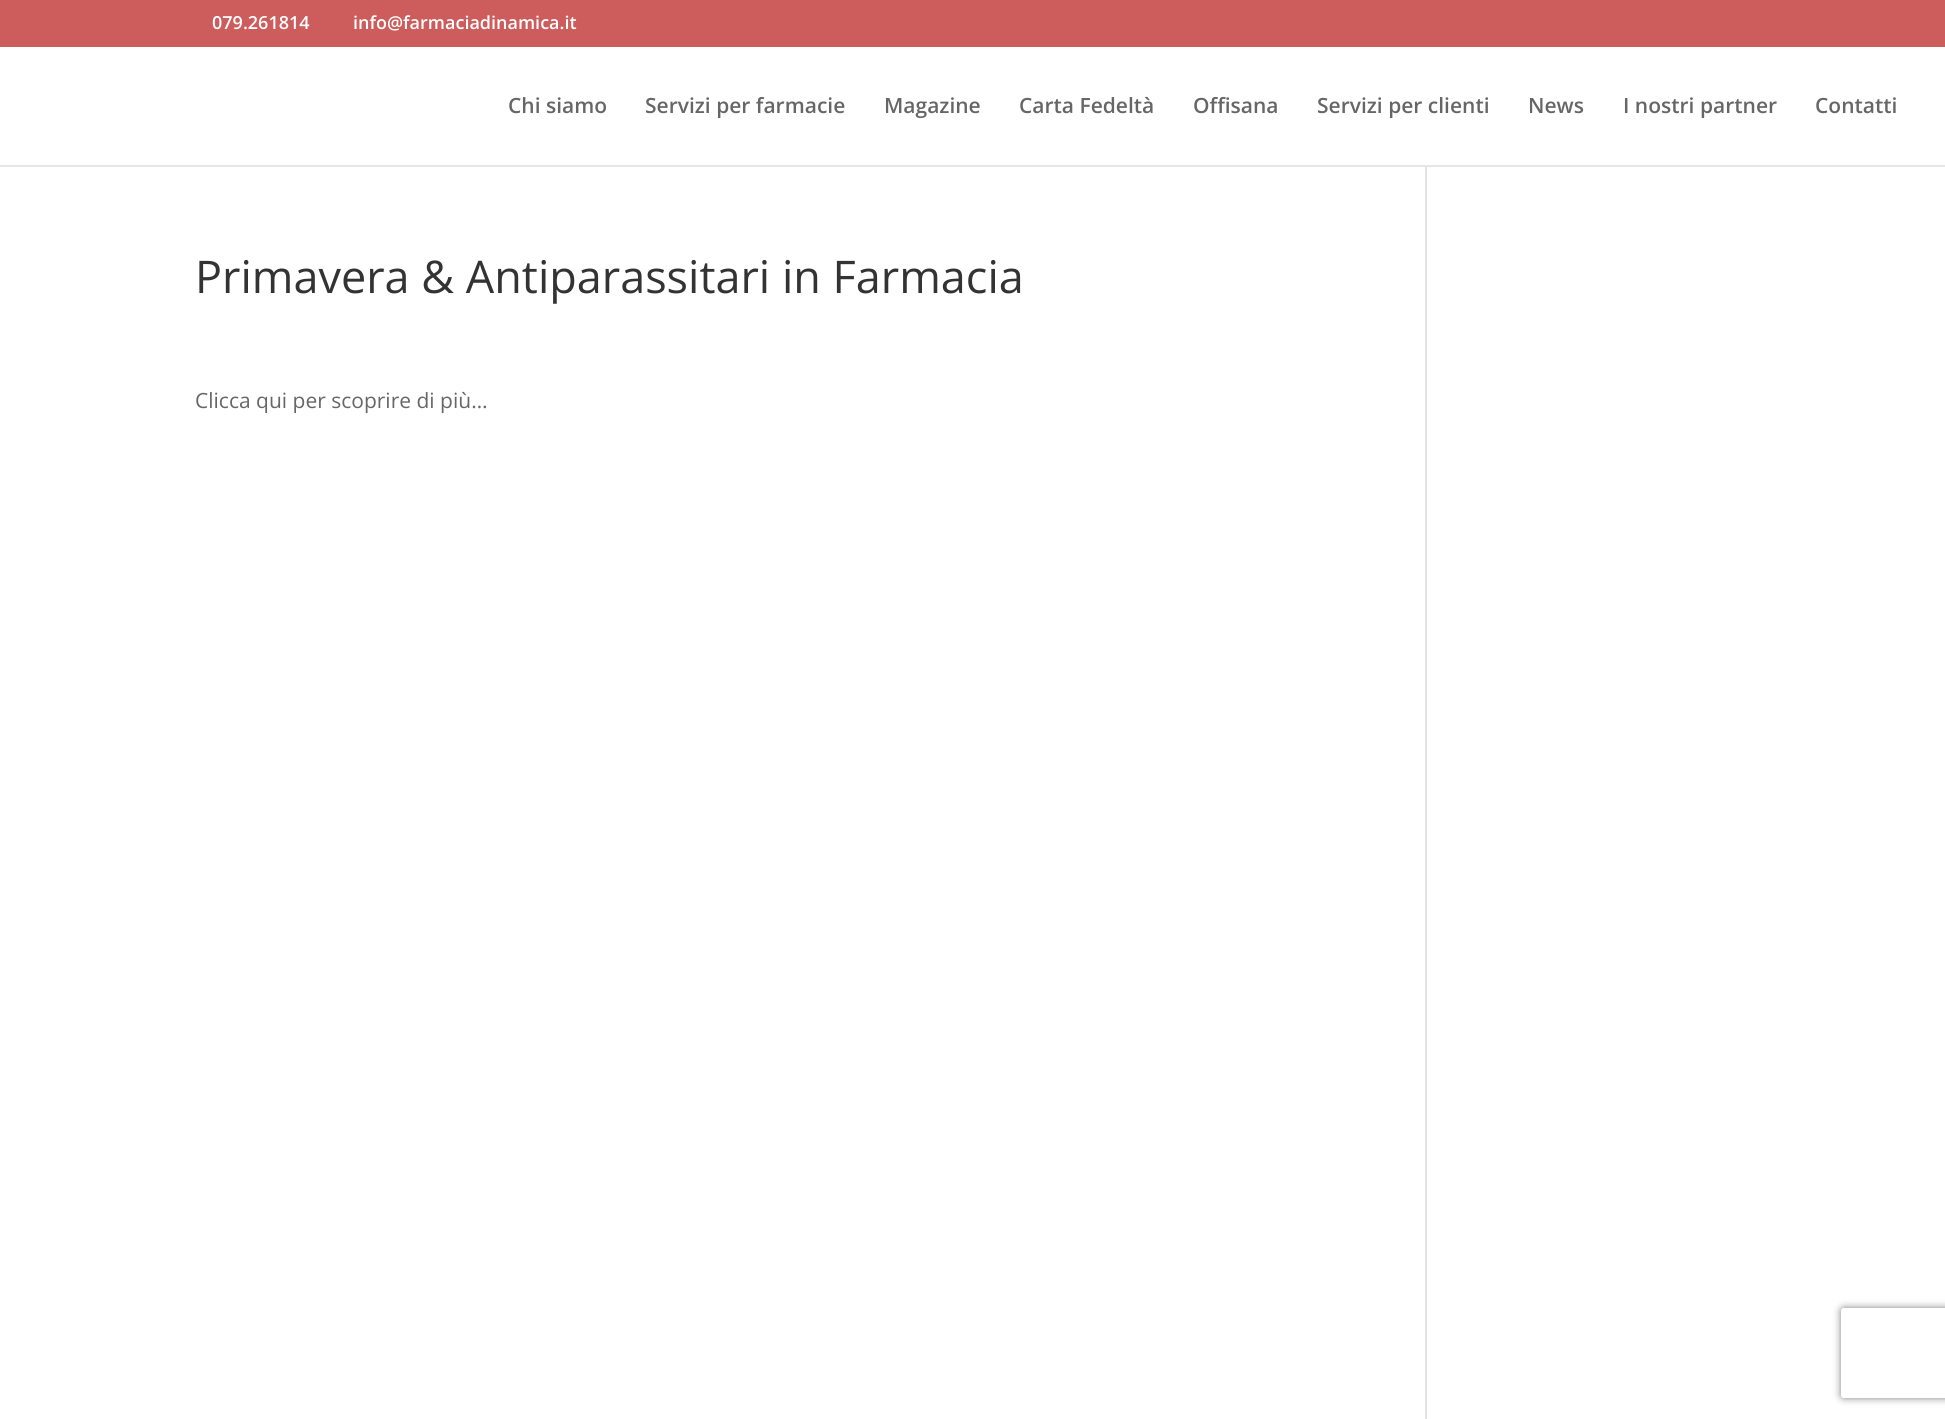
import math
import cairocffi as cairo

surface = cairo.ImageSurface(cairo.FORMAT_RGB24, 1945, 1419)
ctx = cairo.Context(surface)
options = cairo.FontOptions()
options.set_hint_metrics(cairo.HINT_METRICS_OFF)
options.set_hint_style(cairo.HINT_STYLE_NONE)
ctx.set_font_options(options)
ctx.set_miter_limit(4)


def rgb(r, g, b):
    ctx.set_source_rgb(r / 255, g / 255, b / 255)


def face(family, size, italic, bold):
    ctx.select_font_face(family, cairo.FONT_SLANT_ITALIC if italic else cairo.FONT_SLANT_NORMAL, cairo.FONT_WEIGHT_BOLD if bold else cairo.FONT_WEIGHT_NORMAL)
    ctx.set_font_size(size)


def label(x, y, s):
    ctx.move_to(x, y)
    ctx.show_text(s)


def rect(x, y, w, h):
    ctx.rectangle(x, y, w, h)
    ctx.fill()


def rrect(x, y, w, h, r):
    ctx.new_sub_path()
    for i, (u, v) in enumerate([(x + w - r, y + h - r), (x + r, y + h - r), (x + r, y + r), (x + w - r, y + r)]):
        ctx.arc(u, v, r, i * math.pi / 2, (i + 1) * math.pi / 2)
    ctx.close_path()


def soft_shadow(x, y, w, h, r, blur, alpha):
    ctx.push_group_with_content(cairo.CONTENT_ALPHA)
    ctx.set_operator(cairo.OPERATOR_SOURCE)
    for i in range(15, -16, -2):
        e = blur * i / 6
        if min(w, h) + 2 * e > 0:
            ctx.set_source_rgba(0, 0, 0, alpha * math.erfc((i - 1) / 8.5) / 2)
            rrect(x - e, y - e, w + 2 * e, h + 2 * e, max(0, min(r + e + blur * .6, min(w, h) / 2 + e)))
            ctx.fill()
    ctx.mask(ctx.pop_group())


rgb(255, 255, 255)
ctx.paint()
rgb(205, 92, 92)
rect(0, 0, 1945, 47)
face('Open Sans SemiBold', 18, 0, 0)
rgb(255, 255, 255)
label(212, 29, '079.261814')
label(353, 29, 'info@farmaciadinamica.it')
rgb(230, 230, 230)
ctx.new_path()
ctx.move_to(0, 165)
ctx.line_to(0, 167)
ctx.line_to(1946, 167)
ctx.line_to(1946, 47)
ctx.line_to(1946, 165)
ctx.close_path()
ctx.fill()
face('Open Sans SemiBold', 21, 0, 0)
rgb(102, 102, 102)
label(508, 113, 'Chi siamo')
label(645, 113, 'Servizi per farmacie')
label(884, 113, 'Magazine')
label(1019, 113, 'Carta Fedeltà')
label(1193, 113, 'Offisana')
label(1317, 113, 'Servizi per clienti')
label(1528, 113, 'News')
label(1623, 113, 'I nostri partner')
label(1815, 113, 'Contatti')
face('Open Sans', 45, 0, 0)
rgb(51, 51, 51)
label(195, 293, 'Primavera & Antiparassitari in Farmacia')
face('Open Sans', 21, 0, 0)
rgb(102, 102, 102)
label(195, 408, 'Clicca qui per scoprire di più…')
rgb(226, 226, 226)
rect(1425, 167, 2, 1252)
ctx.save()
ctx.set_fill_rule(cairo.FILL_RULE_EVEN_ODD)
ctx.new_path()
ctx.move_to(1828, 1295)
ctx.line_to(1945, 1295)
ctx.line_to(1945, 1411)
ctx.line_to(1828, 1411)
ctx.close_path()
ctx.move_to(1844, 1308)
ctx.line_to(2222, 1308)
ctx.curve_to(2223.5, 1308, 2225, 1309.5, 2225, 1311)
ctx.line_to(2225, 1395)
ctx.curve_to(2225, 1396.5, 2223.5, 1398, 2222, 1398)
ctx.line_to(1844, 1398)
ctx.curve_to(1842.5, 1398, 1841, 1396.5, 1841, 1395)
ctx.line_to(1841, 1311)
ctx.curve_to(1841, 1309.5, 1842.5, 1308, 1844, 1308)
ctx.close_path()
ctx.clip()
rgb(128, 128, 128)
soft_shadow(1841, 1308, 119, 90, 3, 4, 1)
ctx.restore()
surface.write_to_png('render.png')
